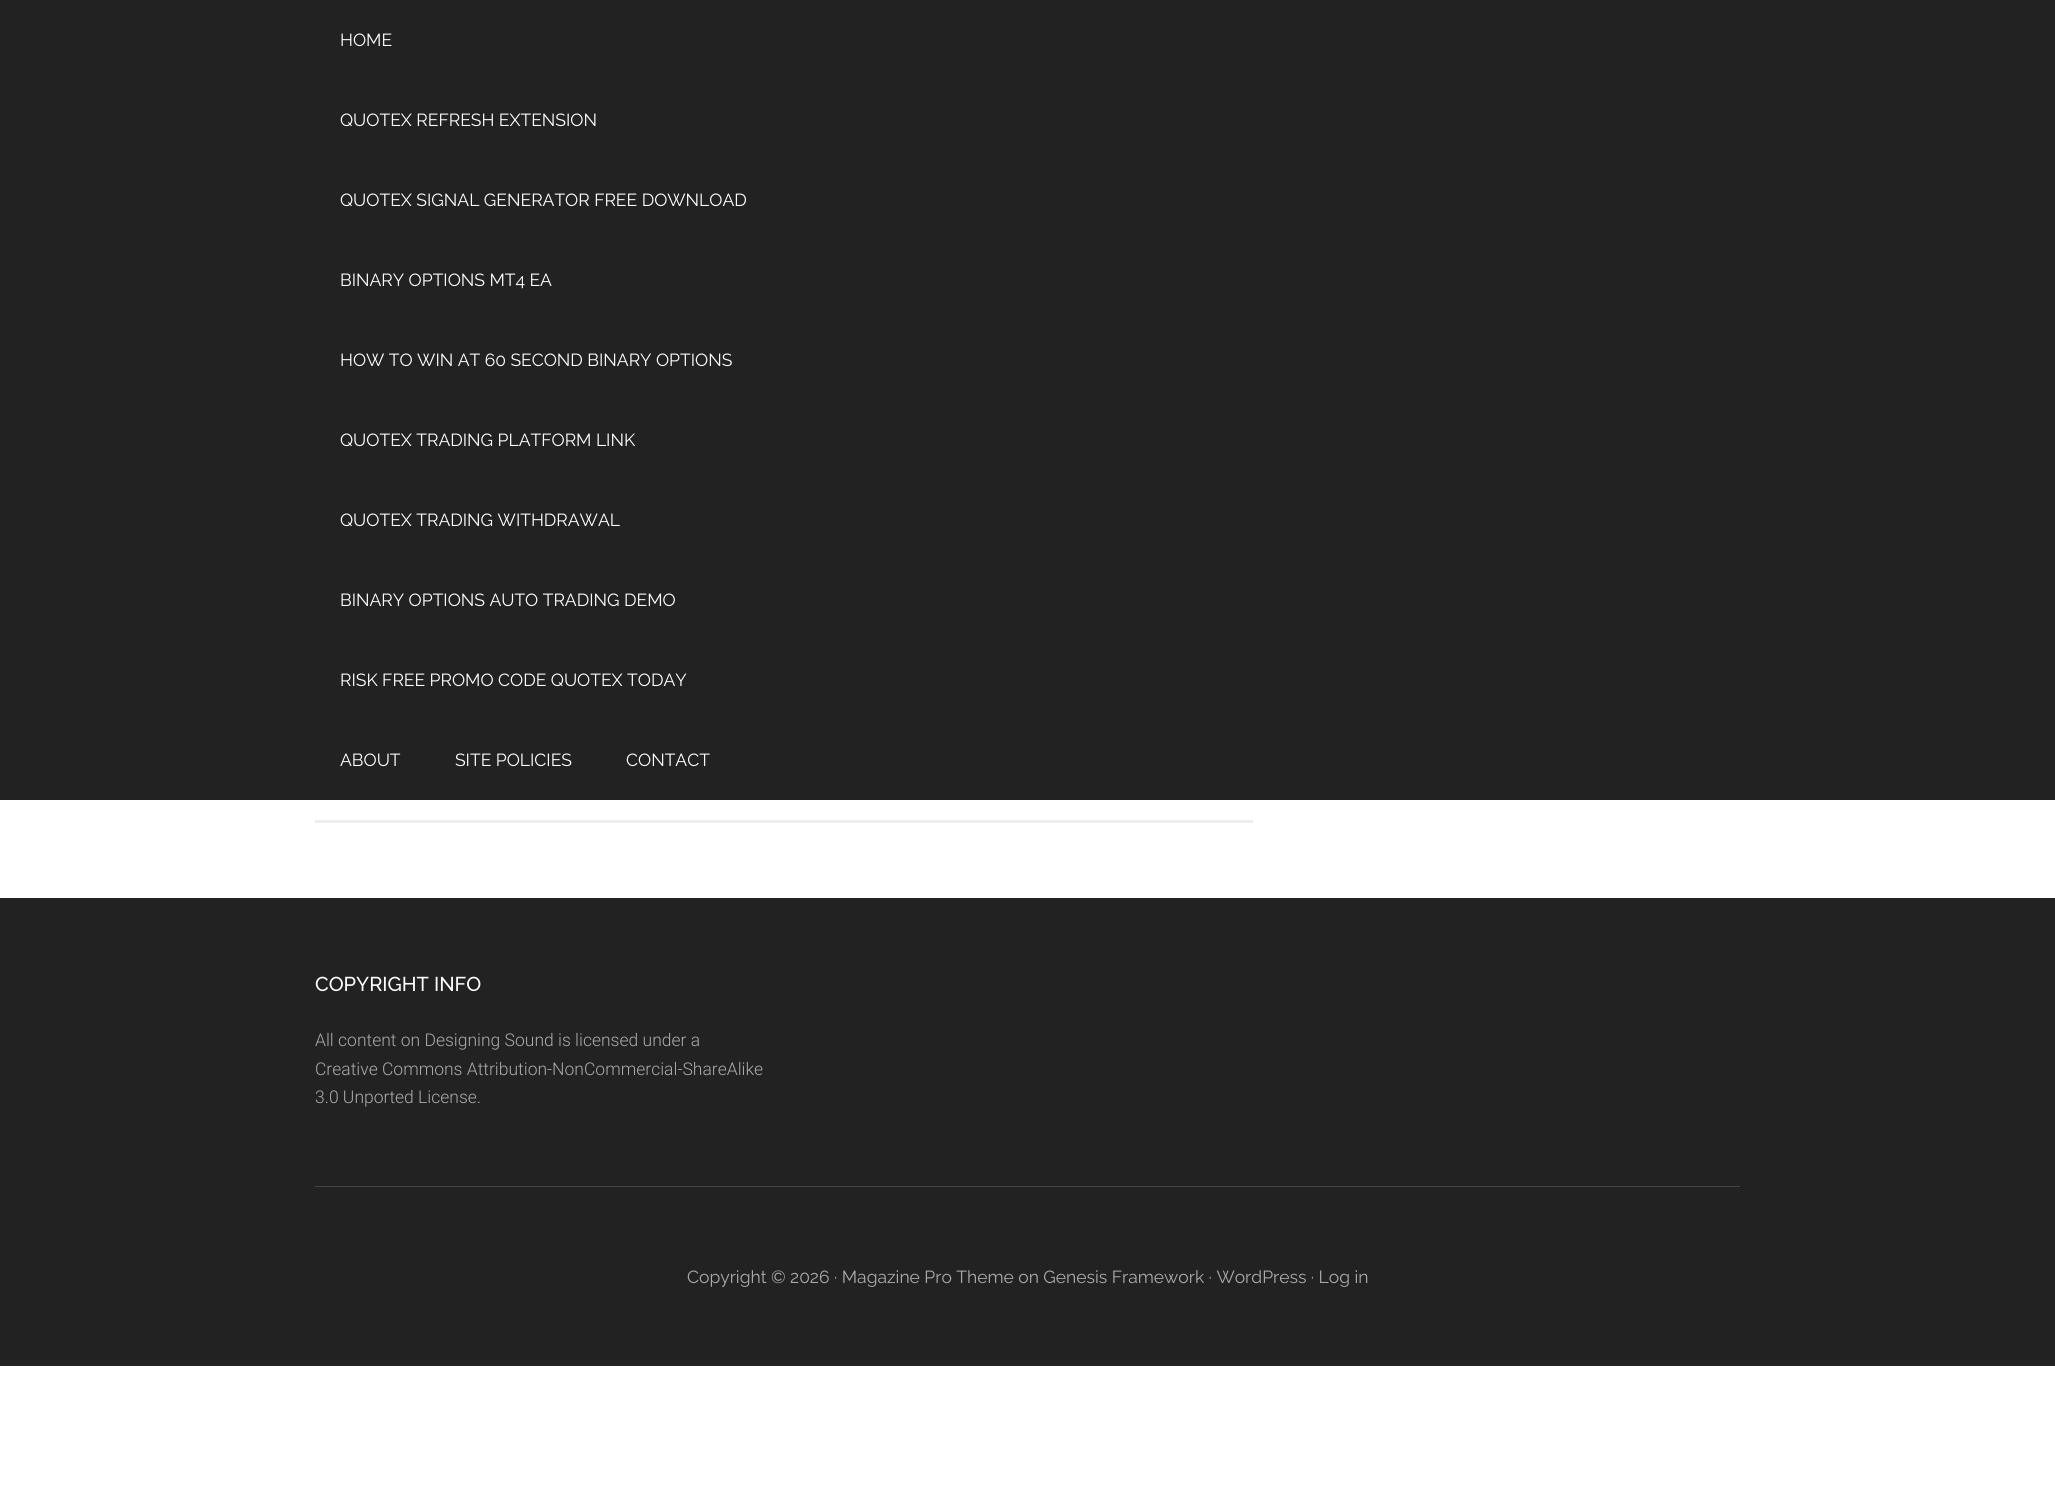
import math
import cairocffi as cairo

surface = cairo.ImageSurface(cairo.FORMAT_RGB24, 2055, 1508)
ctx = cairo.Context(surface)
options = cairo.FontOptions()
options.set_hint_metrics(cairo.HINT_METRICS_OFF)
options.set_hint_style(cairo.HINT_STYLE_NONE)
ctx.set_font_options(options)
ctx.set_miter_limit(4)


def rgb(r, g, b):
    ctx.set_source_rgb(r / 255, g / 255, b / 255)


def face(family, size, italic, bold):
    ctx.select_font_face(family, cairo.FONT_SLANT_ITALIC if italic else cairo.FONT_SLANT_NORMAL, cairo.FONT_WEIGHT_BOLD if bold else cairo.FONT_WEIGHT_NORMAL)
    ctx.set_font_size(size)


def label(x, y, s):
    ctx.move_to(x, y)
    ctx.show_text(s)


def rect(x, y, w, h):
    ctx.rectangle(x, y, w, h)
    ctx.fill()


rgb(255, 255, 255)
ctx.paint()
rgb(34, 34, 34)
rect(0, 0, 2055, 800)
face('Raleway', 17.5, 0, 0)
rgb(255, 255, 255)
label(340, 46, 'HOME')
label(340, 126, 'QUOTEX REFRESH EXTENSION')
label(340, 206, 'QUOTEX SIGNAL GENERATOR FREE DOWNLOAD')
label(340, 286, 'BINARY OPTIONS MT4 EA')
label(340, 366, 'HOW TO WIN AT 60 SECOND BINARY OPTIONS')
label(340, 446, 'QUOTEX TRADING PLATFORM LINK')
label(340, 526, 'QUOTEX TRADING WITHDRAWAL')
label(340, 606, 'BINARY OPTIONS AUTO TRADING DEMO')
label(340, 686, 'RISK FREE PROMO CODE QUOTEX TODAY')
label(340, 766, 'ABOUT')
label(455, 766, 'SITE POLICIES')
label(626, 766, 'CONTACT')
rgb(238, 238, 238)
rect(315, 820, 938, 3)
rgb(34, 34, 34)
rect(0, 898, 2055, 468)
face('Raleway Medium', 20, 0, 0)
rgb(255, 255, 255)
label(315, 991, 'COPYRIGHT INFO')
face('Roboto Light', 17.5, 0, 0)
rgb(170, 170, 170)
label(315, 1046, 'All content on Designing Sound is licensed under a')
label(315, 1075, 'Creative Commons Attribution-NonCommercial-ShareAlike')
label(315, 1103, '3.0 Unported License.')
rgb(68, 68, 68)
rect(315, 1186, 1425, 1)
face('Raleway', 17.5, 0, 0)
rgb(170, 170, 170)
label(687, 1283, 'Copyright © 2026 · Magazine Pro Theme on Genesis Framework · WordPress · Log in')
surface.write_to_png('render.png')
